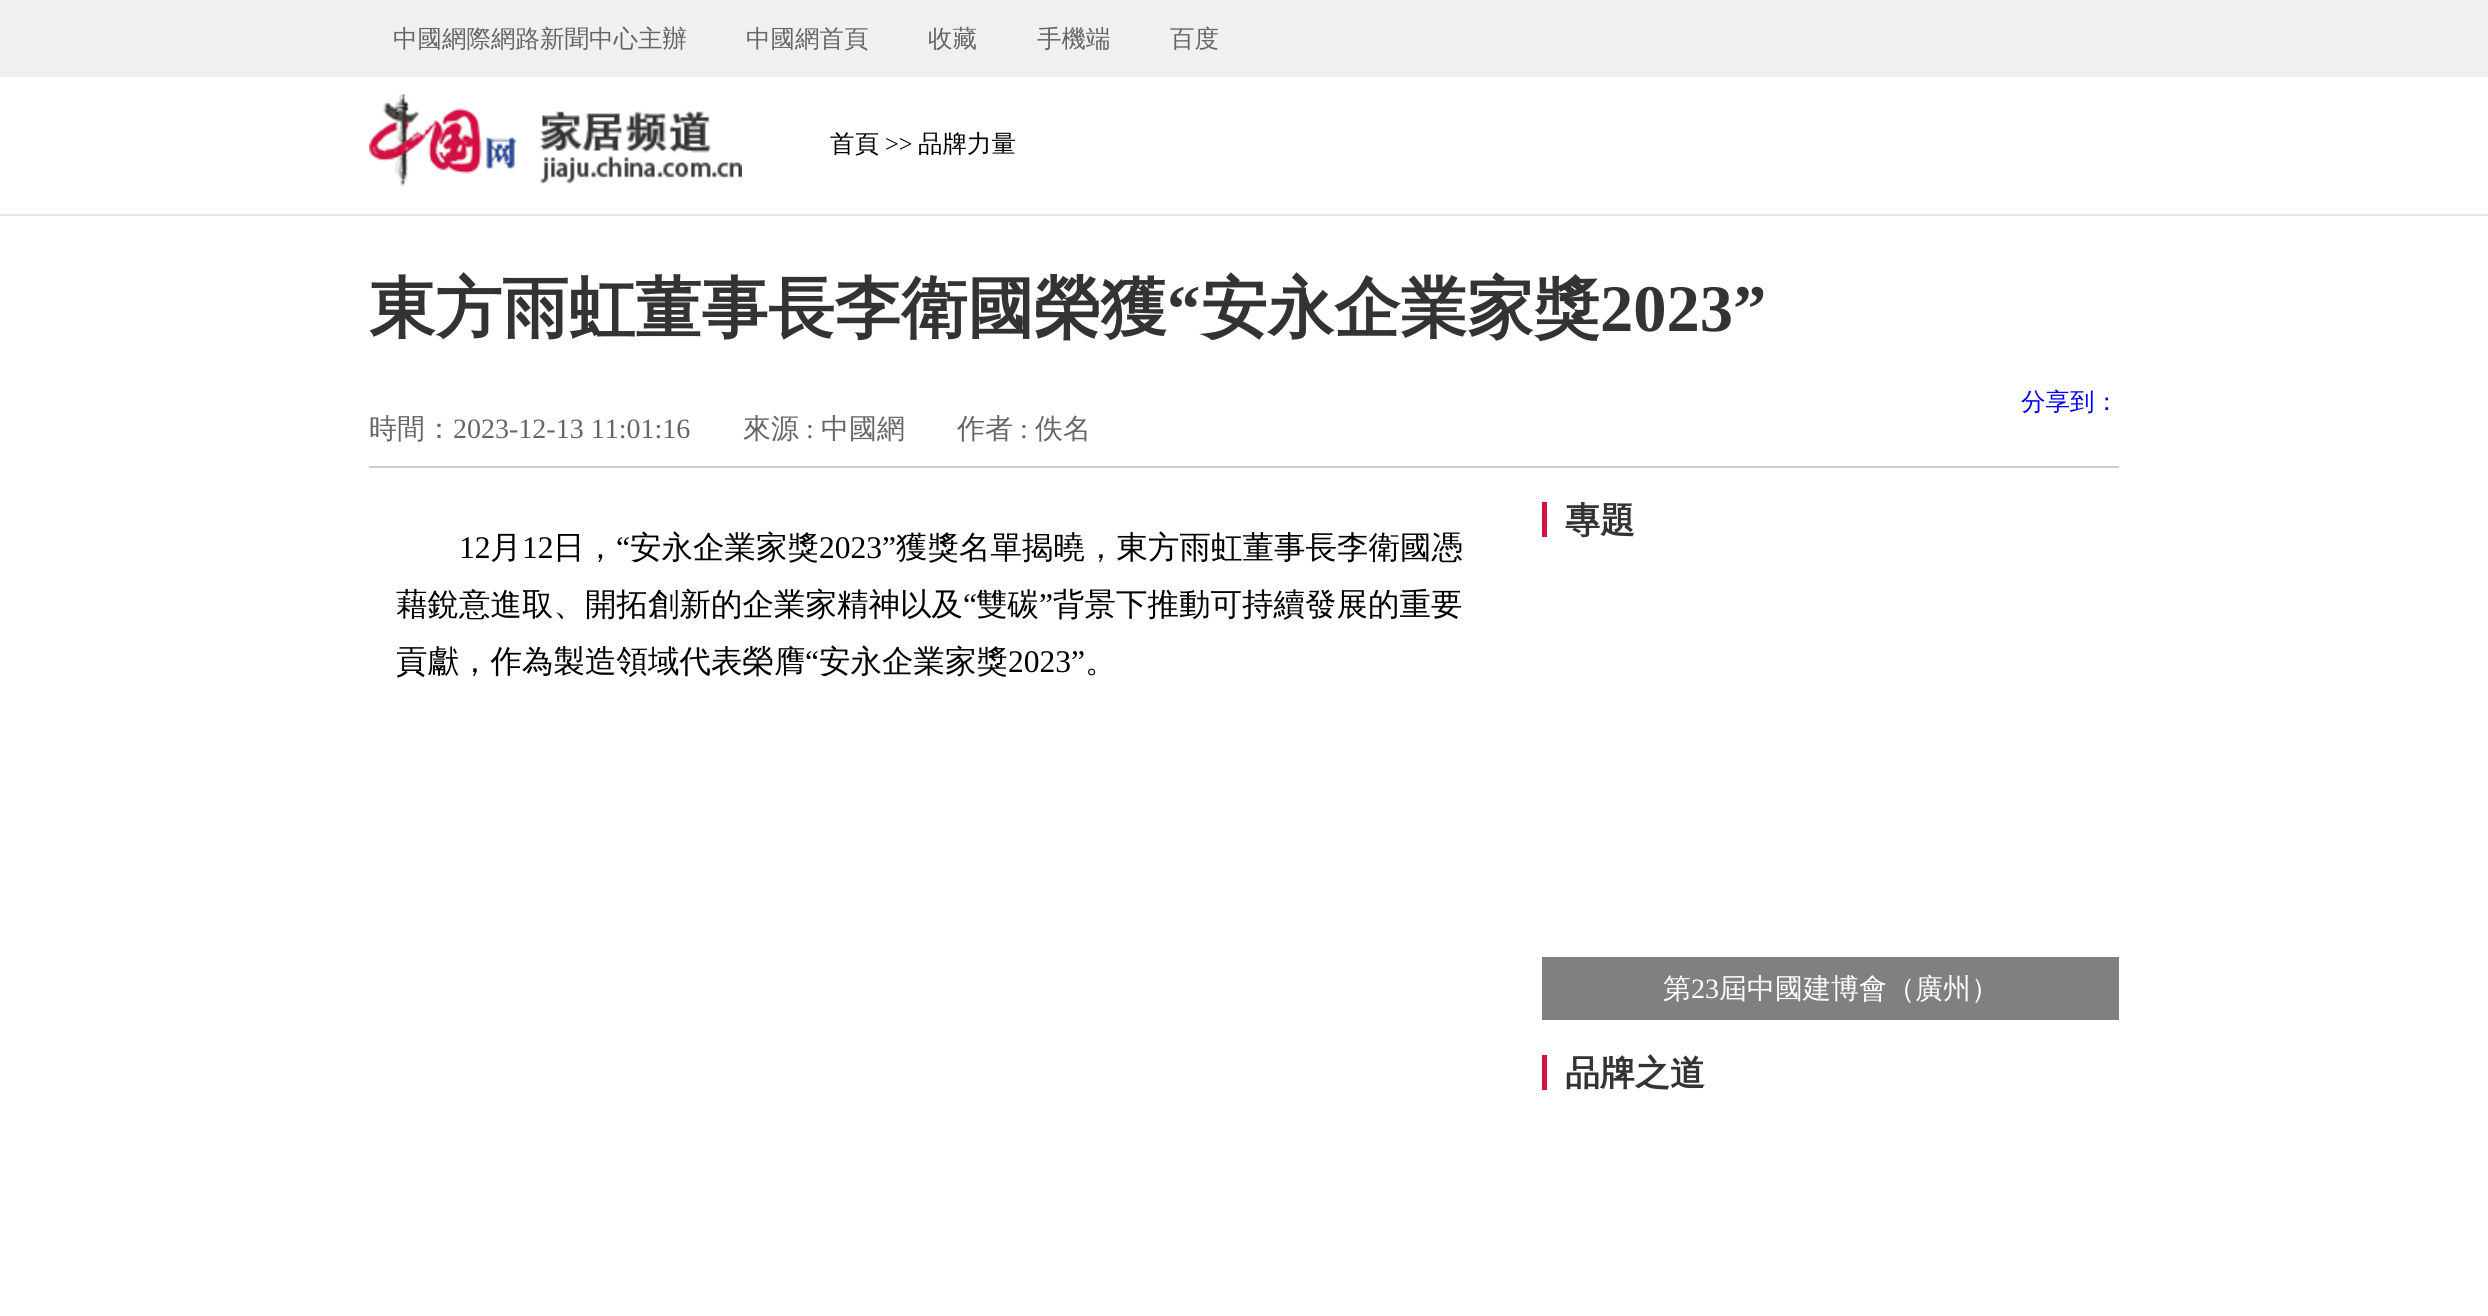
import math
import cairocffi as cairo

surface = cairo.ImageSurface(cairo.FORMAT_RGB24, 2488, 1316)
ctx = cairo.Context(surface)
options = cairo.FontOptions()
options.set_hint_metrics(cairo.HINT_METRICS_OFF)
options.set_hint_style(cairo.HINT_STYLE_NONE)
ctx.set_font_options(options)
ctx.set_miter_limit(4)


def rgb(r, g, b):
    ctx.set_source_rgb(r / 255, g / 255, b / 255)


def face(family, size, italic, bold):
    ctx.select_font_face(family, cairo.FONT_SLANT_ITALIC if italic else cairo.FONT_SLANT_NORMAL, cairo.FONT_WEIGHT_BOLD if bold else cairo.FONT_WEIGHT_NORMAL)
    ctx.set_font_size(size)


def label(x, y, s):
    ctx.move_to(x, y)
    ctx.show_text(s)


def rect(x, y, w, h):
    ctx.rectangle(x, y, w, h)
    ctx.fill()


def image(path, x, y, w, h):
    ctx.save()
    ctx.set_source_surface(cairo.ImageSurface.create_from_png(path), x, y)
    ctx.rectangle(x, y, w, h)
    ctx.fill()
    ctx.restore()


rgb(255, 255, 255)
ctx.paint()
rgb(240, 240, 240)
rect(0, 0, 2488, 77)
face('WenQuanYi Zen Hei Medium', 24.5, 0, 0)
rgb(102, 102, 102)
label(393, 47, '中國網際網路新聞中心主辦')
label(746, 47, '中國網首頁')
label(928, 47, '收藏')
label(1037, 47, '手機端')
label(1170, 47, '百度')
rgb(229, 229, 229)
rect(0, 214, 2488, 2)
image('image0.png', 369, 94, 373, 93)
rgb(0, 0, 0)
label(830, 152, '首頁')
face('Liberation Serif', 24.5, 0, 0)
label(885, 152, '>>')
face('WenQuanYi Zen Hei Medium', 24.5, 0, 0)
label(918, 152, '品牌力量')
face('WenQuanYi Zen Hei', 66.5, 0, 1)
rgb(51, 51, 51)
label(369, 331, '東方雨虹董事長李衛國榮獲')
face('Liberation Serif', 66.5, 0, 1)
label(1167, 331, '“')
face('WenQuanYi Zen Hei', 66.5, 0, 1)
label(1201, 331, '安永企業家獎')
face('Liberation Serif', 66.5, 0, 1)
label(1600, 331, '2023”')
rgb(204, 204, 204)
rect(369, 466, 1750, 2)
face('WenQuanYi Zen Hei Medium', 24.5, 0, 0)
rgb(0, 0, 238)
label(2021, 410, '分享到：')
face('WenQuanYi Zen Hei Medium', 28, 0, 0)
rgb(102, 102, 102)
label(369, 438, '時間：')
face('Liberation Serif', 28, 0, 0)
label(453, 438, '2023-12-13 11:01:16')
face('WenQuanYi Zen Hei Medium', 28, 0, 0)
label(743, 438, '來源')
face('Liberation Serif', 28, 0, 0)
label(806, 438, ':')
face('WenQuanYi Zen Hei Medium', 28, 0, 0)
label(821, 438, '中國網')
label(957, 438, '作者')
face('Liberation Serif', 28, 0, 0)
label(1020, 438, ':')
face('WenQuanYi Zen Hei Medium', 28, 0, 0)
label(1035, 438, '佚名')
face('Liberation Serif', 31.5, 0, 0)
rgb(0, 0, 0)
label(459, 558, '12')
face('WenQuanYi Zen Hei Medium', 31.5, 0, 0)
label(490, 558, '月')
face('Liberation Serif', 31.5, 0, 0)
label(522, 558, '12')
face('WenQuanYi Zen Hei Medium', 31.5, 0, 0)
label(553, 558, '日，')
face('Liberation Serif', 31.5, 0, 0)
label(616, 558, '“')
face('WenQuanYi Zen Hei Medium', 31.5, 0, 0)
label(630, 558, '安永企業家獎')
face('Liberation Serif', 31.5, 0, 0)
label(819, 558, '2023”')
face('WenQuanYi Zen Hei Medium', 31.5, 0, 0)
label(896, 558, '獲獎名單揭曉，東方雨虹董事長李衛國憑')
label(396, 615, '藉銳意進取、開拓創新的企業家精神以及')
face('Liberation Serif', 31.5, 0, 0)
label(963, 615, '“')
face('WenQuanYi Zen Hei Medium', 31.5, 0, 0)
label(976, 615, '雙碳')
face('Liberation Serif', 31.5, 0, 0)
label(1039, 615, '”')
face('WenQuanYi Zen Hei Medium', 31.5, 0, 0)
label(1053, 615, '背景下推動可持續發展的重要')
label(396, 672, '貢獻，作為製造領域代表榮膺')
face('Liberation Serif', 31.5, 0, 0)
label(805, 672, '“')
face('WenQuanYi Zen Hei Medium', 31.5, 0, 0)
label(819, 672, '安永企業家獎')
face('Liberation Serif', 31.5, 0, 0)
label(1008, 672, '2023”')
face('WenQuanYi Zen Hei Medium', 31.5, 0, 0)
label(1085, 672, '。')
rgb(209, 17, 68)
rect(1542, 502, 5, 35)
face('WenQuanYi Zen Hei', 35, 0, 1)
rgb(51, 51, 51)
label(1565, 532, '專題')
rgb(128, 128, 128)
rect(1542, 957, 577, 63)
face('WenQuanYi Zen Hei Medium', 28, 0, 0)
rgb(255, 255, 255)
label(1663, 998, '第')
face('Liberation Serif', 28, 0, 0)
label(1691, 998, '23')
face('WenQuanYi Zen Hei Medium', 28, 0, 0)
label(1719, 998, '屆中國建博會（廣州）')
rgb(209, 17, 68)
rect(1542, 1055, 5, 35)
face('WenQuanYi Zen Hei', 35, 0, 1)
rgb(51, 51, 51)
label(1565, 1085, '品牌之道')
surface.write_to_png('render.png')
